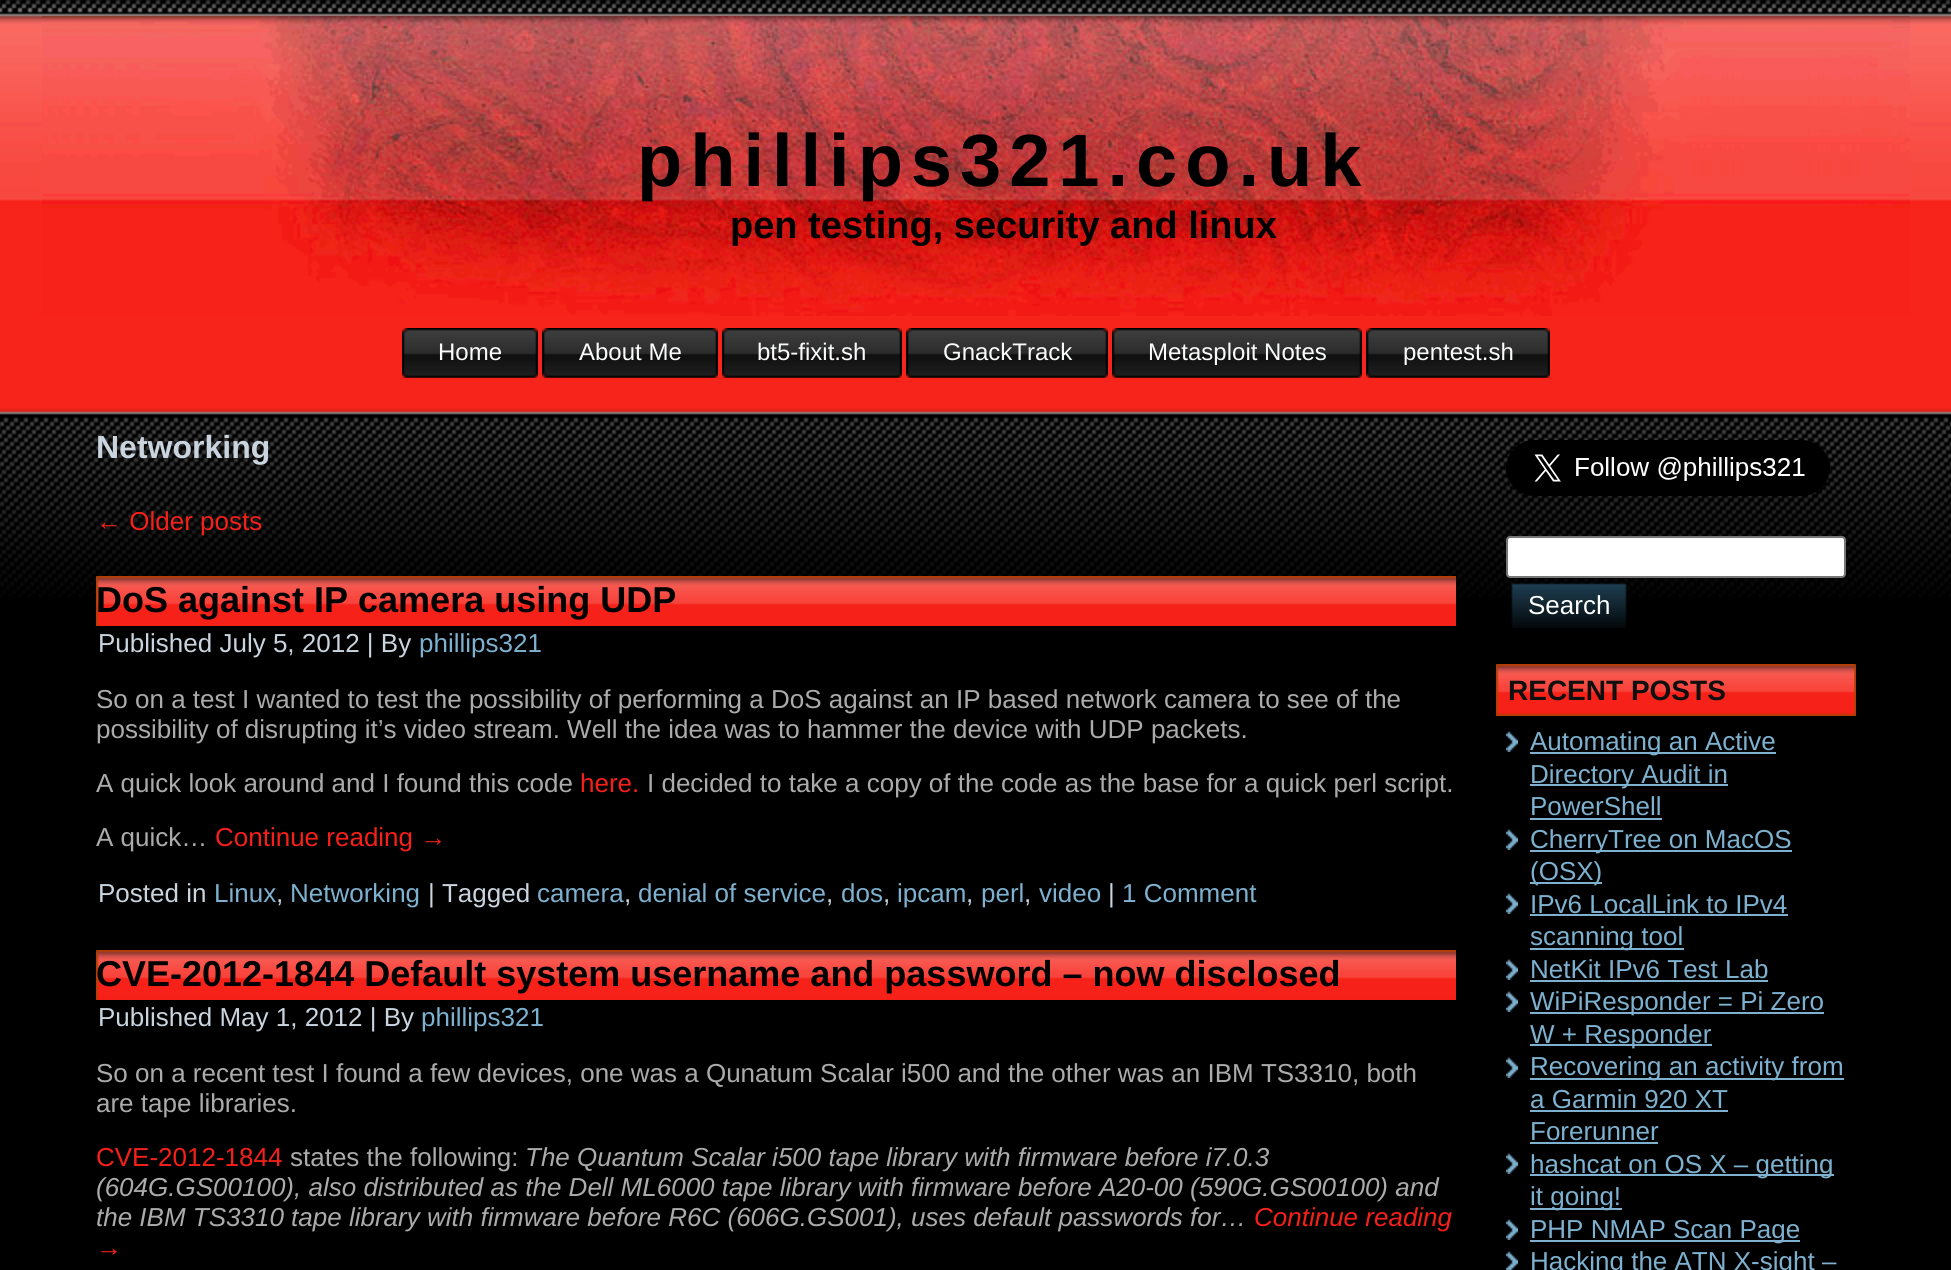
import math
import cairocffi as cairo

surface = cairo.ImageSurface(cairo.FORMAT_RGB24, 1951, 1270)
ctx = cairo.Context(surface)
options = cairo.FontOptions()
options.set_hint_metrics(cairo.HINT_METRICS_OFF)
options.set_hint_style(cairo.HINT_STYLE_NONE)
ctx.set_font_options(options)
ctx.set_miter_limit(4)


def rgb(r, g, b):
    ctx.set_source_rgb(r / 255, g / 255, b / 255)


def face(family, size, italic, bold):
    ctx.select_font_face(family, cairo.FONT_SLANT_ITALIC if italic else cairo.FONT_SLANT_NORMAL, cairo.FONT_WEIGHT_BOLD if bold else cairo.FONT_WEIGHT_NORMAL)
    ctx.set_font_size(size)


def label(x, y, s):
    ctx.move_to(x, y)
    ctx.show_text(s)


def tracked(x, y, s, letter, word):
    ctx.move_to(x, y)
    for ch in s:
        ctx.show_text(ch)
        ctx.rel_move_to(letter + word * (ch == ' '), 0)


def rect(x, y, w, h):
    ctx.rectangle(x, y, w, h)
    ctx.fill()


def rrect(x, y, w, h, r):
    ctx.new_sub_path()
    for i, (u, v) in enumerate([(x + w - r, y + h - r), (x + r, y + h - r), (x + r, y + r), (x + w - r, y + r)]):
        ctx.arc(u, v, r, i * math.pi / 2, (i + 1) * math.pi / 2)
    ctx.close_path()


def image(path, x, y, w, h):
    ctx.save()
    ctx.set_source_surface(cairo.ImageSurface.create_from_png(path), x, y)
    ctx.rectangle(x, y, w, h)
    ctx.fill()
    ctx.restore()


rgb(0, 0, 0)
ctx.paint()
image('image0.png', 0, 0, 1951, 597)
image('image1.png', 42, 16, 1868, 300)
face('Liberation Sans', 74, 0, 1)
rgb(0, 0, 0)
tracked(637, 186, 'phillips321.co.uk', 8, 0)
face('Liberation Sans', 38, 0, 1)
label(730, 238, 'pen testing, security and linux')
image('image2.png', 402, 328, 130, 50)
image('image3.png', 532, 328, 6, 50)
face('Liberation Sans', 24, 0, 0)
rgb(249, 250, 251)
label(438, 360, 'Home')
image('image4.png', 542, 328, 170, 50)
image('image3.png', 712, 328, 6, 50)
label(579, 360, 'About Me')
image('image5.png', 722, 328, 174, 50)
image('image3.png', 896, 328, 6, 50)
label(757, 360, 'bt5-fixit.sh')
image('image6.png', 906, 328, 196, 50)
image('image3.png', 1102, 328, 6, 50)
label(943, 360, 'GnackTrack')
image('image7.png', 1112, 328, 244, 50)
image('image3.png', 1356, 328, 6, 50)
label(1148, 360, 'Metasploit Notes')
image('image8.png', 1366, 328, 178, 50)
image('image3.png', 1544, 328, 6, 50)
label(1403, 360, 'pentest.sh')
face('Liberation Sans', 32, 0, 1)
rgb(201, 212, 222)
label(96, 458, 'Networking')
face('Liberation Sans', 26, 0, 0)
rgb(245, 32, 25)
label(96, 530, '← Older posts')
image('image9.png', 96, 576, 1360, 50)
face('Liberation Sans', 36, 0, 1)
rgb(0, 0, 0)
label(96, 612, 'DoS against IP camera using UDP')
face('Liberation Sans', 26, 0, 0)
rgb(201, 212, 222)
label(98, 652, 'Published July 5, 2012 | By')
rgb(125, 177, 207)
label(419, 652, 'phillips321')
rgb(171, 171, 171)
label(96, 708, 'So on a test I wanted to test the possibility of performing a DoS against an IP based network camera to see of the')
label(96, 738, 'possibility of disrupting it’s video stream. Well the idea was to hammer the device with UDP packets.')
label(96, 792, 'A quick look around and I found this code')
rgb(245, 32, 25)
label(580, 792, 'here.')
rgb(171, 171, 171)
label(647, 792, 'I decided to take a copy of the code as the base for a quick perl script.')
label(96, 846, 'A quick…')
rgb(245, 32, 25)
label(215, 846, 'Continue reading →')
rgb(201, 212, 222)
label(98, 902, 'Posted in')
rgb(125, 177, 207)
label(214, 902, 'Linux')
rgb(201, 212, 222)
label(276, 902, ',')
rgb(125, 177, 207)
label(290, 902, 'Networking')
rgb(201, 212, 222)
label(428, 902, '| Tagged')
rgb(125, 177, 207)
label(537, 902, 'camera')
rgb(201, 212, 222)
label(624, 902, ',')
rgb(125, 177, 207)
label(638, 902, 'denial of service')
rgb(201, 212, 222)
label(826, 902, ',')
rgb(125, 177, 207)
label(841, 902, 'dos')
rgb(201, 212, 222)
label(883, 902, ',')
rgb(125, 177, 207)
label(897, 902, 'ipcam')
rgb(201, 212, 222)
label(966, 902, ',')
rgb(125, 177, 207)
label(981, 902, 'perl')
rgb(201, 212, 222)
label(1024, 902, ',')
rgb(125, 177, 207)
label(1039, 902, 'video')
rgb(201, 212, 222)
label(1108, 902, '|')
rgb(125, 177, 207)
label(1122, 902, '1 Comment')
image('image10.png', 96, 950, 1360, 50)
face('Liberation Sans', 36, 0, 1)
rgb(0, 0, 0)
label(96, 986, 'CVE-2012-1844 Default system username and password – now disclosed')
face('Liberation Sans', 26, 0, 0)
rgb(201, 212, 222)
label(98, 1026, 'Published May 1, 2012 | By')
rgb(125, 177, 207)
label(421, 1026, 'phillips321')
rgb(171, 171, 171)
label(96, 1082, 'So on a recent test I found a few devices, one was a Qunatum Scalar i500 and the other was an IBM TS3310, both')
label(96, 1112, 'are tape libraries.')
rgb(245, 32, 25)
label(96, 1166, 'CVE-2012-1844')
rgb(171, 171, 171)
label(290, 1166, 'states the following:')
face('Liberation Sans', 26, 1, 0)
label(525, 1166, 'The Quantum Scalar i500 tape library with firmware before i7.0.3')
label(96, 1196, '(604G.GS00100), also distributed as the Dell ML6000 tape library with firmware before A20-00 (590G.GS00100) and')
label(96, 1226, 'the IBM TS3310 tape library with firmware before R6C (606G.GS001), uses default passwords for…')
rgb(245, 32, 25)
label(1254, 1226, 'Continue reading')
label(96, 1256, '→')
image('image11.png', 1506, 440, 324, 56)
rgb(255, 255, 255)
rrect(1507, 537, 338, 40, 3)
ctx.fill_preserve()
rgb(118, 118, 118)
ctx.stroke()
image('image12.png', 1511, 583, 107, 45)
image('image13.png', 1618, 583, 9, 45)
face('Liberation Sans', 26, 0, 0)
rgb(255, 255, 255)
label(1528, 614, 'Search')
image('image14.png', 1496, 664, 358, 52)
image('image15.png', 1854, 664, 2, 52)
face('Liberation Sans', 28, 0, 1)
rgb(15, 15, 15)
label(1508, 700, 'RECENT POSTS')
image('image16.png', 1506, 731, 12, 21)
rgb(125, 177, 207)
rect(1530, 752, 246, 2)
face('Liberation Sans', 26, 0, 0)
label(1530, 750, 'Automating an Active')
rect(1530, 784, 198, 2)
label(1530, 783, 'Directory Audit in')
label(1530, 815, 'PowerShell')
rect(1530, 818, 132, 2)
image('image16.png', 1506, 829, 12, 21)
rect(1530, 850, 262, 2)
label(1530, 848, 'CherryTree on MacOS')
rect(1530, 882, 72, 2)
label(1530, 880, '(OSX)')
image('image16.png', 1506, 893, 12, 21)
label(1530, 913, 'IPv6 LocalLink to IPv4')
rect(1530, 914, 258, 2)
rect(1530, 948, 154, 2)
label(1530, 945, 'scanning tool')
image('image16.png', 1506, 959, 12, 21)
label(1530, 978, 'NetKit IPv6 Test Lab')
rect(1530, 980, 238, 2)
image('image16.png', 1506, 991, 12, 21)
rect(1530, 1012, 294, 2)
label(1530, 1010, 'WiPiResponder = Pi Zero')
rect(1530, 1044, 182, 2)
label(1530, 1043, 'W + Responder')
image('image16.png', 1506, 1057, 12, 21)
rect(1530, 1078, 314, 2)
label(1530, 1075, 'Recovering an activity from')
label(1530, 1108, 'a Garmin 920 XT')
rect(1530, 1110, 198, 2)
label(1530, 1140, 'Forerunner')
rect(1530, 1142, 128, 2)
image('image16.png', 1506, 1153, 12, 21)
rect(1530, 1174, 304, 2)
label(1530, 1173, 'hashcat on OS X – getting')
rect(1530, 1208, 92, 2)
label(1530, 1205, 'it going!')
image('image16.png', 1506, 1219, 12, 21)
rect(1530, 1240, 270, 2)
label(1530, 1238, 'PHP NMAP Scan Page')
image('image17.png', 1506, 1251, 12, 19)
label(1530, 1270, 'Hacking the ATN X-sight –')
surface.write_to_png('render.png')
